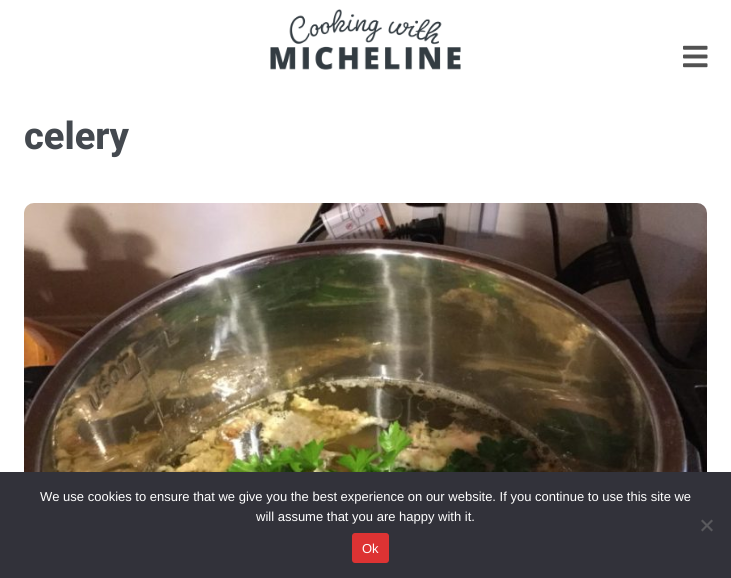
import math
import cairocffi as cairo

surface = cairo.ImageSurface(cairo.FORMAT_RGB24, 731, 578)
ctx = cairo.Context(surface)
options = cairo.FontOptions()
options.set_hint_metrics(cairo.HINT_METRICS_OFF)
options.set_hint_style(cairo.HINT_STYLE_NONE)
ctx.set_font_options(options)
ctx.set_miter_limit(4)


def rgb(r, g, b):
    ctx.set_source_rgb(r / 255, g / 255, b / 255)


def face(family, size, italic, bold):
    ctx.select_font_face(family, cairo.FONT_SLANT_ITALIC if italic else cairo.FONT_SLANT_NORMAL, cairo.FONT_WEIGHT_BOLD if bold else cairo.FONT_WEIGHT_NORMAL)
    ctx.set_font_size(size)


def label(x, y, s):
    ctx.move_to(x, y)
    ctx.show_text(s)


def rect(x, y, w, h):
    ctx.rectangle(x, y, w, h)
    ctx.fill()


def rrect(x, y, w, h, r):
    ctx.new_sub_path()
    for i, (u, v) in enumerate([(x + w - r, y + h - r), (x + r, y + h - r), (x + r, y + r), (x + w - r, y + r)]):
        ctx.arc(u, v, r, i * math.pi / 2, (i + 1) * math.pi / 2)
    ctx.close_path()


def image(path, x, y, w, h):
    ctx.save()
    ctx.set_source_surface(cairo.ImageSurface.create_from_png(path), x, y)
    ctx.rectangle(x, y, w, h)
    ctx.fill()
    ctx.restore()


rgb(255, 255, 255)
ctx.paint()
image('image0.png', 270, 9, 191, 61)
image('image1.png', 683, 45, 25, 23)
face('Roboto ExtraBold', 38, 0, 0)
rgb(68, 73, 79)
label(24, 149, 'celery')
rgb(241, 241, 241)
rrect(24, 203, 683, 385, 10)
ctx.fill()
image('image2.png', 24, 203, 683, 269)
rgb(50, 50, 58)
rect(0, 472, 731, 106)
face('Liberation Sans', 13, 0, 0)
rgb(255, 255, 255)
label(40, 501, 'We use cookies to ensure that we give you the best experience on our website. If you continue to use this site we')
label(256, 521, 'will assume that you are happy with it.')
rgb(89, 89, 93)
ctx.new_path()
ctx.move_to(711.5, 519.5)
ctx.line_to(713, 521)
ctx.line_to(702.5, 531.5)
ctx.line_to(701, 530)
ctx.close_path()
ctx.fill()
ctx.new_path()
ctx.move_to(701, 521)
ctx.line_to(702.5, 519.5)
ctx.line_to(713, 530)
ctx.line_to(711.5, 531.5)
ctx.close_path()
ctx.fill()
rgb(221, 51, 51)
rrect(352, 533, 37, 30, 3)
ctx.fill()
rgb(255, 255, 255)
label(362, 553, 'Ok')
surface.write_to_png('render.png')
